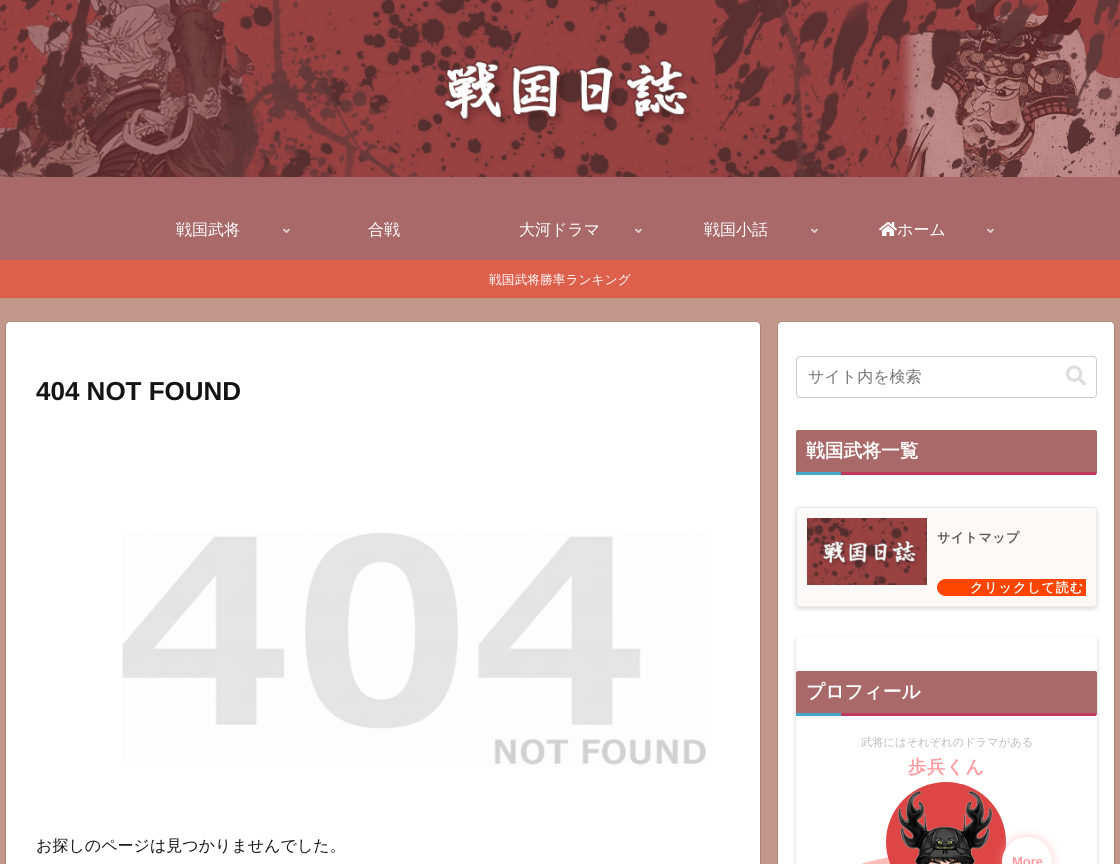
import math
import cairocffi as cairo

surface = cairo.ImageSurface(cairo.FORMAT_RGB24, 1120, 864)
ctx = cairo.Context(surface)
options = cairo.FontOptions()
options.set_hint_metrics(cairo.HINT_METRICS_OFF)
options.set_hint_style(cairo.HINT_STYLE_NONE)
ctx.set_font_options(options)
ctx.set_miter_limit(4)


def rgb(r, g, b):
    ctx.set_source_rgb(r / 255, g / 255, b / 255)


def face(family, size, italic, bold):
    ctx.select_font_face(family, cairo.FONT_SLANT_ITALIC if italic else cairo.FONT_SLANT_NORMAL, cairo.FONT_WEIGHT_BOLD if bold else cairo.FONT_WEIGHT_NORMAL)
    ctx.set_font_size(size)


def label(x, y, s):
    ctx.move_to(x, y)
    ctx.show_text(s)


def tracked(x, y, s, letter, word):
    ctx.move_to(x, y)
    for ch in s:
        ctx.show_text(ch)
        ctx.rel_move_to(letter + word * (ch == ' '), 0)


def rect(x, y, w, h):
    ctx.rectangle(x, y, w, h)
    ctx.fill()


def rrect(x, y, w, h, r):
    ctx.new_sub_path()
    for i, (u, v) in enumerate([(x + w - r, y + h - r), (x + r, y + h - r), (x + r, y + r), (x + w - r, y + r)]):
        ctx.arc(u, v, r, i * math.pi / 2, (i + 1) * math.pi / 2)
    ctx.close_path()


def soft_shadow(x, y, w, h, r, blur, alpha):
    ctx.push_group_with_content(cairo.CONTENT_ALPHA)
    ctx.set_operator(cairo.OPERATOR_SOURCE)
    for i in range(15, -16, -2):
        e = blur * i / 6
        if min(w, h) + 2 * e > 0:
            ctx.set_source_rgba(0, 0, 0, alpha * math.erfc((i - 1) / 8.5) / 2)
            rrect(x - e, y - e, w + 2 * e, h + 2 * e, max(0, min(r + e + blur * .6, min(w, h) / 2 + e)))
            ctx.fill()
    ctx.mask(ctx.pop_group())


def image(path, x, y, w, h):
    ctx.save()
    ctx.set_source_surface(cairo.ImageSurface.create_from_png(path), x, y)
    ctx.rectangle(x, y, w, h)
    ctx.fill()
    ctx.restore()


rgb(193, 152, 137)
ctx.paint()
rgb(170, 105, 105)
rect(0, 177, 1120, 83)
image('image0.png', 0, 0, 1120, 177)
face('WenQuanYi Zen Hei Medium', 16, 0, 0)
rgb(255, 255, 255)
label(176, 235, '戦国武将')
image('image1.png', 283, 228, 7, 5)
label(368, 235, '合戦')
label(519, 235, '大河ドラマ')
image('image1.png', 635, 228, 7, 5)
label(704, 235, '戦国小話')
image('image1.png', 811, 228, 7, 5)
image('image2.png', 879, 222, 18, 14)
label(897, 235, 'ホーム')
image('image1.png', 987, 228, 7, 5)
rgb(221, 96, 77)
rect(0, 260, 1120, 38)
face('WenQuanYi Zen Hei Medium', 12.75, 0, 0)
rgb(255, 255, 255)
label(489, 284, '戦国武将勝率ランキング')
rrect(5.5, 321.5, 755, 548, 4.5)
rgb(178, 140, 126)
ctx.set_line_width(1)
ctx.stroke()
rgb(0, 0, 0)
soft_shadow(6, 324, 754, 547, 4, 1, 0.16)
rgb(255, 255, 255)
rrect(6, 322, 754, 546, 4)
ctx.fill()
face('Liberation Sans', 26, 0, 1)
rgb(20, 20, 20)
label(36, 400, '404 NOT FOUND')
image('image3.png', 122, 532, 584, 235)
face('WenQuanYi Zen Hei Medium', 16, 0, 0)
label(36, 851, 'お探しのページは見つかりませんでした。')
rrect(777.5, 321.5, 337, 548, 4.5)
rgb(178, 140, 126)
ctx.stroke()
rgb(0, 0, 0)
soft_shadow(778, 324, 336, 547, 4, 1, 0.16)
rgb(255, 255, 255)
rrect(778, 322, 336, 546, 4)
ctx.fill()
rrect(796.5, 356.5, 300, 41, 3.5)
rgb(204, 204, 204)
ctx.stroke()
rgb(117, 117, 117)
label(808, 382, 'サイト内を検索')
image('image4.png', 1066, 365, 20, 21)
rgb(170, 105, 105)
rrect(796, 430, 301, 45, 2)
ctx.fill()
rgb(193, 56, 95)
rect(841, 472, 255, 3)
face('WenQuanYi Zen Hei', 18.75, 0, 1)
rgb(255, 255, 255)
label(806, 457, '戦国武将一覧')
rgb(67, 168, 202)
rect(796, 472, 45, 3)
rgb(253, 249, 249)
rect(796, 507, 301, 100)
ctx.save()
ctx.set_fill_rule(cairo.FILL_RULE_EVEN_ODD)
ctx.new_path()
ctx.move_to(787, 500)
ctx.line_to(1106, 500)
ctx.line_to(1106, 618)
ctx.line_to(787, 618)
ctx.close_path()
ctx.move_to(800, 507)
ctx.line_to(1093, 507)
ctx.curve_to(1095, 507, 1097, 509, 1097, 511)
ctx.line_to(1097, 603)
ctx.curve_to(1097, 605, 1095, 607, 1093, 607)
ctx.line_to(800, 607)
ctx.curve_to(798, 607, 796, 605, 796, 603)
ctx.line_to(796, 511)
ctx.curve_to(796, 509, 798, 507, 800, 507)
ctx.close_path()
ctx.clip()
rgb(0, 0, 0)
soft_shadow(796, 509, 301, 100, 4, 2.5, 0.15)
ctx.restore()
rrect(796.5, 507.5, 300, 99, 3.5)
rgb(234, 234, 234)
ctx.stroke()
image('image5.png', 807, 518, 120, 67)
face('WenQuanYi Zen Hei', 13, 0, 1)
rgb(85, 85, 85)
tracked(937, 542, 'サイトマップ', 0.5, 0)
rgb(255, 69, 0)
ctx.new_path()
ctx.move_to(945.5, 579)
ctx.line_to(1086, 579)
ctx.line_to(1086, 596)
ctx.line_to(945.5, 596)
ctx.curve_to(941, 596, 937, 592, 937, 587.5)
ctx.curve_to(937, 583, 941, 579, 945.5, 579)
ctx.close_path()
ctx.fill()
rgb(255, 255, 255)
tracked(970, 592, 'クリックして読む', 1, 0)
rgb(0, 0, 0)
soft_shadow(796, 638, 301, 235, 3, 2, 0.2)
rgb(255, 255, 255)
ctx.new_path()
ctx.move_to(799, 636)
ctx.line_to(1094, 636)
ctx.curve_to(1095.5, 636, 1097, 637.5, 1097, 639)
ctx.line_to(1097, 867)
ctx.line_to(796, 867)
ctx.line_to(796, 639)
ctx.curve_to(796, 637.5, 797.5, 636, 799, 636)
ctx.close_path()
ctx.fill()
rgb(170, 105, 105)
rrect(796, 671, 301, 45, 2)
ctx.fill()
rgb(193, 56, 95)
rect(841, 713, 255, 3)
face('WenQuanYi Zen Hei', 18.75, 0, 1)
rgb(255, 255, 255)
label(806, 698, 'プロフィール')
rgb(67, 168, 202)
rect(796, 713, 45, 3)
face('WenQuanYi Zen Hei Medium', 11.25, 0, 0)
rgb(187, 187, 187)
label(861, 746, '武将にはそれぞれのドラマがある')
gradient = cairo.LinearGradient(789, 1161, 1105, 845)
gradient.add_color_stop_rgba(0, 1, 0.604, 0.62, 1)
gradient.add_color_stop_rgba(0.99, 0.98, 0.816, 0.769, 1)
gradient.add_color_stop_rgba(1, 0.98, 0.816, 0.769, 1)
ctx.set_source(gradient)
ctx.new_path()
ctx.move_to(946, 852)
ctx.curve_to(880, 852, 822, 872, 796, 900)
ctx.line_to(796, 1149)
ctx.curve_to(796, 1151, 798, 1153, 800, 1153)
ctx.line_to(1093, 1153)
ctx.curve_to(1095, 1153, 1097, 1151, 1097, 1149)
ctx.line_to(1097, 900)
ctx.curve_to(1071, 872, 1013, 852, 946, 852)
ctx.close_path()
ctx.fill()
face('WenQuanYi Zen Hei', 18, 0, 1)
rgb(255, 154, 158)
tracked(908, 773, '歩兵くん', 1, 0)
image('image6.png', 886, 782, 120, 82)
rgb(255, 154, 158)
soft_shadow(1002, 837, 50, 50, 25, 5, 0.5)
rgb(255, 255, 255)
ctx.arc(1027, 862, 25, 0, 2 * math.pi)
ctx.fill()
face('Liberation Sans', 13, 0, 1)
rgb(255, 154, 158)
label(1012, 866, 'More')
surface.write_to_png('render.png')
